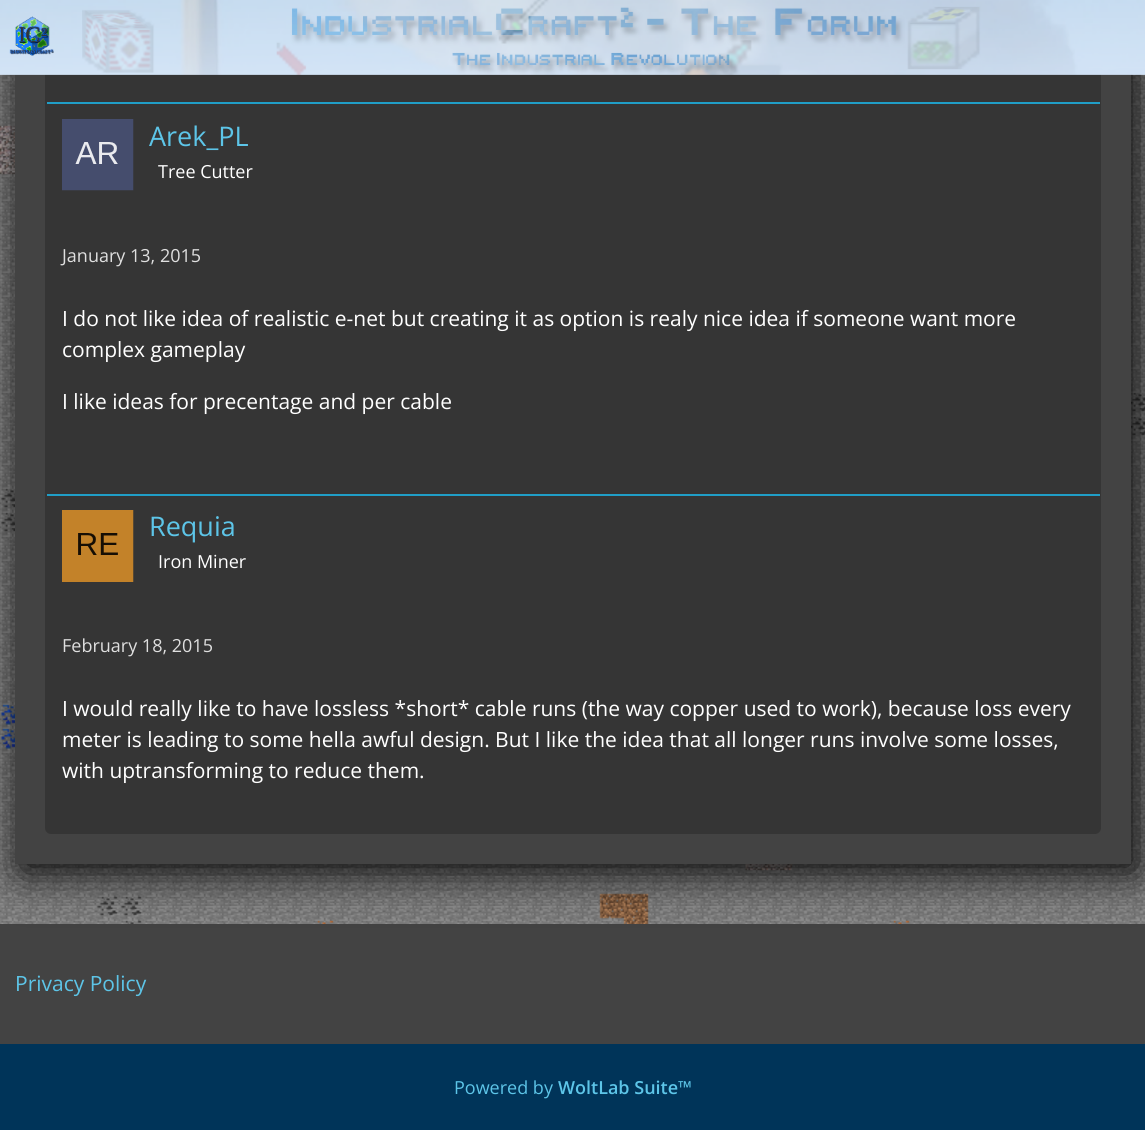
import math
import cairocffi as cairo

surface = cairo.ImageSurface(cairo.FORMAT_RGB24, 1145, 1130)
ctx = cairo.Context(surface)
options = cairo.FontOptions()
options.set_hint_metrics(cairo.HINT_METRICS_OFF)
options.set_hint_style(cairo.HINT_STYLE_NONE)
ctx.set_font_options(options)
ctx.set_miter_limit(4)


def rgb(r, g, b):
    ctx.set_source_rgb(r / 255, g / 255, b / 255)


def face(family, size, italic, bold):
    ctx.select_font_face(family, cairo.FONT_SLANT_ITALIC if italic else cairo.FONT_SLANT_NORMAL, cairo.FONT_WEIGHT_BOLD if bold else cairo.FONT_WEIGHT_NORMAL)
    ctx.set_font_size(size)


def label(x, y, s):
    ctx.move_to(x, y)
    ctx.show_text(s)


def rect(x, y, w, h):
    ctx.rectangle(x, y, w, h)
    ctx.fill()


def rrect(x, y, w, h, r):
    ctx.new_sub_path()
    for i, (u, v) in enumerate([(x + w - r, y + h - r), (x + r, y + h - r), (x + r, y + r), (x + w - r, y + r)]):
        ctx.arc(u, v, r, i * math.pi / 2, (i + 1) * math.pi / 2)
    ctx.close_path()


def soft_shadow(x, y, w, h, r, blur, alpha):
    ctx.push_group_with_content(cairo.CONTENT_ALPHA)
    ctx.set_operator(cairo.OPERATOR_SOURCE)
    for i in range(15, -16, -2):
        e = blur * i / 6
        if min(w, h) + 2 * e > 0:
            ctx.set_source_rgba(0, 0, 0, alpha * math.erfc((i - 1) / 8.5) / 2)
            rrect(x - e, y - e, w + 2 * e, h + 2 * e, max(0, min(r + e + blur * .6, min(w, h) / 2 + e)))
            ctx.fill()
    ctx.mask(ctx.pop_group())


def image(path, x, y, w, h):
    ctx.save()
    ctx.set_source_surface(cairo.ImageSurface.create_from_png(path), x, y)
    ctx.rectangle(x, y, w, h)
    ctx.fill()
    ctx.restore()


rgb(67, 67, 67)
ctx.paint()
image('image2.png', 0, 74, 1145, 850)
rgb(0, 0, 0)
soft_shadow(21, -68, 1116, 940, 0, 22.5, 1)
rgb(67, 67, 67)
rect(15, 74, 1116, 790)
rgb(53, 53, 53)
rrect(46, -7, 1054, 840, 5)
ctx.fill_preserve()
ctx.stroke()
image('image0.png', 0, 0, 1145, 75)
image('image1.png', 9, 16, 45, 40)
rgb(32, 158, 199)
rect(47, 102, 1053, 2)
image('image3.png', 62, 119, 72, 72)
face('Open Sans', 27, 0, 0)
rgb(93, 197, 232)
label(149, 146, 'Arek_PL')
face('Open Sans', 18, 0, 0)
rgb(255, 255, 255)
label(158, 178, 'Tree Cutter')
rgb(223, 223, 223)
label(62, 262, 'January 13, 2015')
face('Open Sans', 21, 0, 0)
rgb(255, 255, 255)
label(62, 326, 'I do not like idea of realistic e-net but creating it as option is realy nice idea if someone want more')
label(62, 357, 'complex gameplay')
label(62, 409, 'I like ideas for precentage and per cable')
rgb(32, 158, 199)
rect(47, 494, 1053, 2)
image('image4.png', 62, 510, 72, 72)
face('Open Sans', 27, 0, 0)
rgb(93, 197, 232)
label(149, 536, 'Requia')
face('Open Sans', 18, 0, 0)
rgb(255, 255, 255)
label(158, 568, 'Iron Miner')
rgb(223, 223, 223)
label(62, 652, 'February 18, 2015')
face('Open Sans', 21, 0, 0)
rgb(255, 255, 255)
label(62, 716, 'I would really like to have lossless *short* cable runs (the way copper used to work), because loss every')
label(62, 747, 'meter is leading to some hella awful design. But I like the idea that all longer runs involve some losses,')
label(62, 778, 'with uptransforming to reduce them.')
rgb(93, 197, 232)
label(15, 991, 'Privacy Policy')
rgb(0, 52, 89)
rect(0, 1044, 1145, 86)
face('Open Sans', 18, 0, 0)
rgb(93, 197, 232)
label(454, 1094, 'Powered by')
face('Open Sans SemiBold', 18, 0, 0)
label(558, 1094, 'WoltLab Suite™')
surface.write_to_png('render.png')
